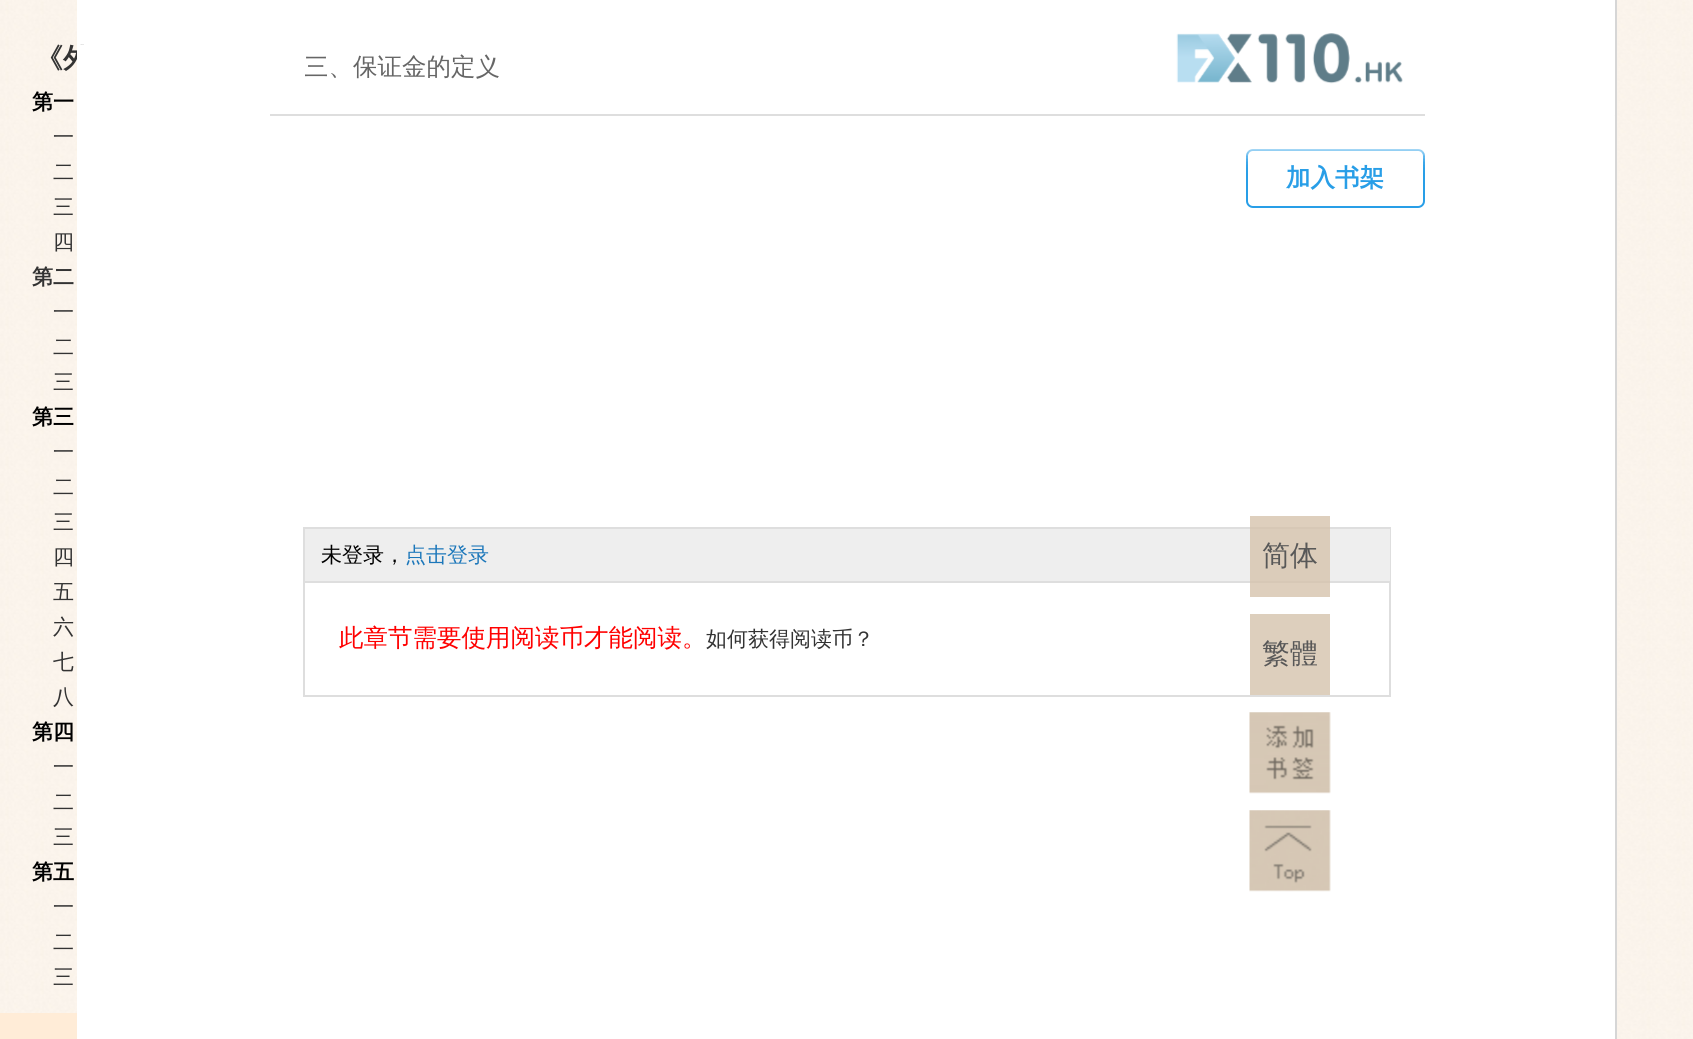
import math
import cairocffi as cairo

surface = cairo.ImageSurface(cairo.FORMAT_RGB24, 1693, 1039)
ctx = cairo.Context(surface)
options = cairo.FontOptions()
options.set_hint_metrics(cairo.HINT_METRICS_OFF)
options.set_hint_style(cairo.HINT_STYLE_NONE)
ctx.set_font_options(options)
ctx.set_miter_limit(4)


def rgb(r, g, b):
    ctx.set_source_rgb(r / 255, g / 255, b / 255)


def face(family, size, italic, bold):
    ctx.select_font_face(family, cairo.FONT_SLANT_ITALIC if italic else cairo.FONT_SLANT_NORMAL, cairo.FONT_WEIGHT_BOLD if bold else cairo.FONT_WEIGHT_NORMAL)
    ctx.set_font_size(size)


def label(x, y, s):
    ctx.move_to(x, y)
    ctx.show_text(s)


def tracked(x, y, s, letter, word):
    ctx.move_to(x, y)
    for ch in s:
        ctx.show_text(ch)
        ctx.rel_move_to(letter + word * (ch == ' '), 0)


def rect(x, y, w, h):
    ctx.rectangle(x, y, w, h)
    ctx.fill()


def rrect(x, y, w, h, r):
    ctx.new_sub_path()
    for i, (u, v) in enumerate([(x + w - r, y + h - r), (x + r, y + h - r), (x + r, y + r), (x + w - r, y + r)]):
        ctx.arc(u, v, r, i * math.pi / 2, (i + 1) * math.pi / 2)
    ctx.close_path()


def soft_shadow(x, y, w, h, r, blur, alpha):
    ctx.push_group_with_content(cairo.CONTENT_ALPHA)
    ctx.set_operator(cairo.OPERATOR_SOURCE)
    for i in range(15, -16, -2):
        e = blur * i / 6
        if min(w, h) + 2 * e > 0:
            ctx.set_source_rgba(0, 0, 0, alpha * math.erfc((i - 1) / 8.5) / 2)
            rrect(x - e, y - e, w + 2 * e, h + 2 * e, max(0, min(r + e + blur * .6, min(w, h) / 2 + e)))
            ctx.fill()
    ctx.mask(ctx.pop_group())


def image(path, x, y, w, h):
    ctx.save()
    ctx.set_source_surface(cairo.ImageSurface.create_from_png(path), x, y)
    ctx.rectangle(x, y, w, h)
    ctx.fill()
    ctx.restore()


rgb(255, 255, 255)
ctx.paint()
image('image0.png', 0, 0, 77, 1013)
face('WenQuanYi Zen Hei', 28, 0, 1)
rgb(51, 51, 51)
label(35, 68, '《外')
face('WenQuanYi Zen Hei', 21, 0, 1)
rgb(0, 0, 0)
tracked(32, 109, '第一', 0, -1)
face('WenQuanYi Zen Hei Medium', 21, 0, 0)
rgb(51, 51, 51)
label(53, 144, '一')
label(53, 179, '二')
label(53, 214, '三')
label(53, 249, '四')
face('WenQuanYi Zen Hei', 21, 0, 1)
tracked(32, 284, '第二', 0, -1)
face('WenQuanYi Zen Hei Medium', 21, 0, 0)
label(53, 319, '一')
label(53, 354, '二')
label(53, 389, '三')
face('WenQuanYi Zen Hei', 21, 0, 1)
rgb(0, 0, 0)
tracked(32, 424, '第三', 0, -1)
face('WenQuanYi Zen Hei Medium', 21, 0, 0)
rgb(51, 51, 51)
label(53, 459, '一')
label(53, 494, '二')
label(53, 529, '三')
label(53, 564, '四')
label(53, 599, '五')
label(53, 634, '六')
label(53, 669, '七')
label(53, 704, '八')
face('WenQuanYi Zen Hei', 21, 0, 1)
rgb(0, 0, 0)
tracked(32, 739, '第四', 0, -1)
face('WenQuanYi Zen Hei Medium', 21, 0, 0)
rgb(51, 51, 51)
label(53, 774, '一')
label(53, 809, '二')
label(53, 844, '三')
face('WenQuanYi Zen Hei', 21, 0, 1)
rgb(0, 0, 0)
label(32, 879, '第五')
face('WenQuanYi Zen Hei Medium', 21, 0, 0)
rgb(51, 51, 51)
label(53, 914, '一')
label(53, 949, '二')
label(53, 984, '三')
rgb(255, 236, 215)
rect(0, 1013, 77, 26)
rgb(214, 214, 214)
ctx.set_fill_rule(cairo.FILL_RULE_EVEN_ODD)
ctx.new_path()
ctx.move_to(88, 105)
ctx.line_to(1606, 105)
ctx.curve_to(1612, 105, 1617, 110, 1617, 116)
ctx.line_to(1617, 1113)
ctx.curve_to(1617, 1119, 1612, 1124, 1606, 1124)
ctx.line_to(88, 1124)
ctx.curve_to(82, 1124, 77, 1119, 77, 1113)
ctx.line_to(77, 116)
ctx.curve_to(77, 110, 82, 105, 88, 105)
ctx.close_path()
ctx.move_to(88, 107)
ctx.line_to(1606, 107)
ctx.curve_to(1611, 107, 1615, 111, 1615, 116)
ctx.line_to(1615, 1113)
ctx.curve_to(1615, 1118, 1611, 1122, 1606, 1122)
ctx.line_to(88, 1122)
ctx.curve_to(82, 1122, 77, 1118, 77, 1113)
ctx.line_to(77, 116)
ctx.curve_to(77, 111, 82, 107, 88, 107)
ctx.close_path()
ctx.fill()
rgb(255, 255, 255)
rect(77, 45, 1538, 70)
rgb(214, 214, 214)
rect(1615, 0, 2, 116)
rrect(1247, 150, 177, 57, 6)
rgb(40, 158, 231)
ctx.stroke()
ctx.save()
ctx.new_path()
ctx.move_to(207, 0)
ctx.line_to(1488, 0)
ctx.line_to(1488, 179)
ctx.line_to(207, 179)
ctx.close_path()
ctx.move_to(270, 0)
ctx.line_to(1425, 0)
ctx.line_to(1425, 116)
ctx.line_to(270, 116)
ctx.close_path()
ctx.clip()
rgb(255, 255, 255)
soft_shadow(235, -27, 1225, 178, 0, 9, 1)
ctx.restore()
rgb(222, 222, 222)
rect(270, 114, 1155, 2)
ctx.save()
ctx.set_fill_rule(cairo.FILL_RULE_WINDING)
ctx.rectangle(305, 53, 490, 29)
ctx.clip()
face('WenQuanYi Zen Hei Medium', 24.5, 0, 0)
rgb(102, 102, 102)
label(304, 75, '三、保证金的定义')
ctx.restore()
image('image1.png', 1176, 33, 227, 51)
face('WenQuanYi Zen Hei', 24.5, 0, 1)
rgb(40, 158, 231)
label(1286, 186, '加入书架')
ctx.rectangle(304, 528, 1086, 168)
rgb(222, 222, 222)
ctx.stroke()
rgb(238, 238, 238)
rect(305, 529, 1085, 52)
rgb(222, 222, 222)
rect(305, 581, 1085, 2)
face('WenQuanYi Zen Hei Medium', 21, 0, 0)
rgb(0, 0, 0)
label(321, 562, '未登录，')
rgb(28, 119, 186)
label(405, 562, '点击登录')
face('WenQuanYi Zen Hei Medium', 24.5, 0, 0)
rgb(255, 0, 0)
label(339, 646, '此章节需要使用阅读币才能阅读。')
face('WenQuanYi Zen Hei Medium', 21, 0, 0)
rgb(51, 51, 51)
label(706, 646, '如何获得阅读币？')
ctx.set_source_rgba(0.835, 0.765, 0.675, 0.8)
rect(1250, 516, 80, 81)
face('WenQuanYi Zen Hei Medium', 28, 0, 0)
rgb(88, 88, 88)
label(1262, 565, '简体')
rgb(221, 207, 189)
rect(1250, 614, 80, 81)
rgb(88, 88, 88)
label(1262, 663, '繁體')
image('image2.png', 1249, 712, 82, 82)
image('image3.png', 1249, 810, 82, 82)
image('image4.png', 1617, 0, 76, 1039)
surface.write_to_png('render.png')
